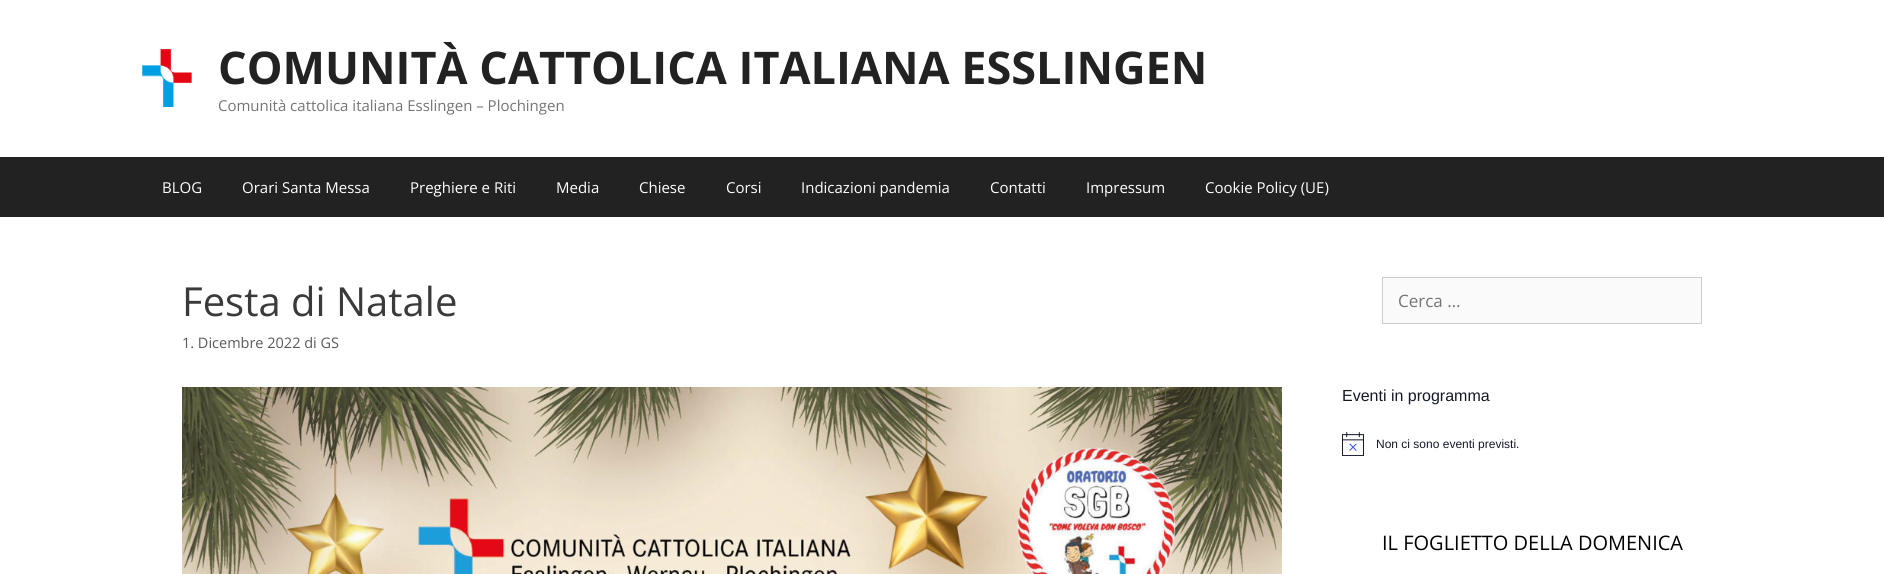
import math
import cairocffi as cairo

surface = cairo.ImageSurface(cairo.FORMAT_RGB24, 1884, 574)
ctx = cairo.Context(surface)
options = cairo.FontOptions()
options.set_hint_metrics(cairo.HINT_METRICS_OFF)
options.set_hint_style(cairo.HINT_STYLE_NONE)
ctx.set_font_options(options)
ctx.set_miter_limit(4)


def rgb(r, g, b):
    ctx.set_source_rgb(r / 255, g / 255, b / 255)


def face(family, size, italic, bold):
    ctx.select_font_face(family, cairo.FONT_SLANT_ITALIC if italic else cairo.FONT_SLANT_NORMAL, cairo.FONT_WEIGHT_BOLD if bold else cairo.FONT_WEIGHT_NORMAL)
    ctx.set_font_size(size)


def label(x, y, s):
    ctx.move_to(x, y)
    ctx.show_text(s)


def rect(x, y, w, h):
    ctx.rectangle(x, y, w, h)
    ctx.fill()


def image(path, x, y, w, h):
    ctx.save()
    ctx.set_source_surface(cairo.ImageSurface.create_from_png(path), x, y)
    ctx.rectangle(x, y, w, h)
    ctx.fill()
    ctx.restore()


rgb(255, 255, 255)
ctx.paint()
image('image0.png', 142, 49, 50, 58)
face('Open Sans', 45, 0, 1)
rgb(34, 34, 34)
label(218, 84, 'COMUNITÀ CATTOLICA ITALIANA ESSLINGEN')
face('Open Sans', 15, 0, 0)
rgb(117, 117, 117)
label(218, 111, 'Comunità cattolica italiana Esslingen – Plochingen')
rgb(34, 34, 34)
rect(0, 157, 1884, 60)
rgb(255, 255, 255)
label(162, 193, 'BLOG')
label(242, 193, 'Orari Santa Messa')
label(410, 193, 'Preghiere e Riti')
label(556, 193, 'Media')
label(639, 193, 'Chiese')
label(726, 193, 'Corsi')
label(801, 193, 'Indicazioni pandemia')
label(990, 193, 'Contatti')
label(1086, 193, 'Impressum')
label(1205, 193, 'Cookie Policy (UE)')
face('Open Sans', 40, 0, 0)
rgb(58, 58, 58)
label(182, 316, 'Festa di Natale')
face('Open Sans', 14.5, 0, 0)
rgb(89, 89, 89)
label(182, 348, '1. Dicembre 2022 di GS')
image('image1.png', 182, 387, 1100, 187)
rgb(250, 250, 250)
ctx.rectangle(1382.5, 277.5, 319, 46)
ctx.fill_preserve()
rgb(204, 204, 204)
ctx.set_line_width(1)
ctx.stroke()
face('Open Sans', 17, 0, 0)
rgb(117, 117, 117)
label(1398, 307, 'Cerca …')
face('Liberation Sans', 16, 0, 0)
rgb(20, 24, 39)
label(1342, 401, 'Eventi in programma')
image('image2.png', 1342, 432, 22, 24)
face('Liberation Sans', 12, 0, 0)
label(1376, 448, 'Non ci sono eventi previsti.')
face('Open Sans', 20, 0, 0)
rgb(0, 0, 0)
label(1382, 550, 'IL FOGLIETTO DELLA DOMENICA')
surface.write_to_png('render.png')
